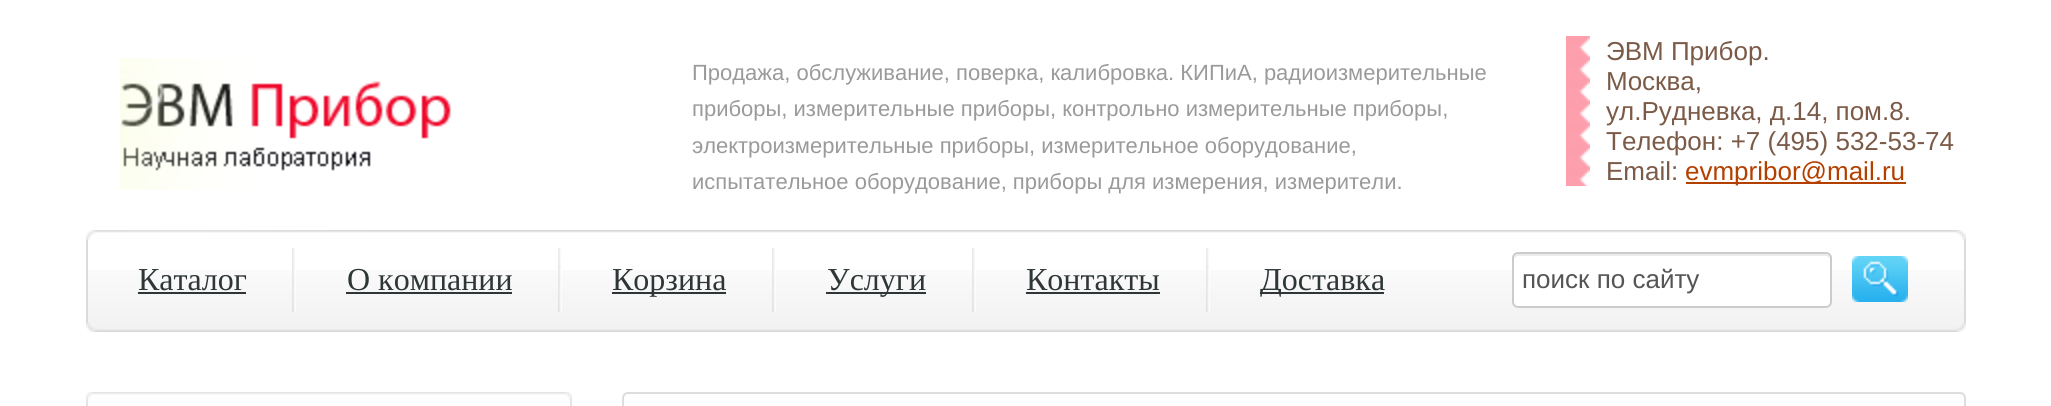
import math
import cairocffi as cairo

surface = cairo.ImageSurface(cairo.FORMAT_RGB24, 2051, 406)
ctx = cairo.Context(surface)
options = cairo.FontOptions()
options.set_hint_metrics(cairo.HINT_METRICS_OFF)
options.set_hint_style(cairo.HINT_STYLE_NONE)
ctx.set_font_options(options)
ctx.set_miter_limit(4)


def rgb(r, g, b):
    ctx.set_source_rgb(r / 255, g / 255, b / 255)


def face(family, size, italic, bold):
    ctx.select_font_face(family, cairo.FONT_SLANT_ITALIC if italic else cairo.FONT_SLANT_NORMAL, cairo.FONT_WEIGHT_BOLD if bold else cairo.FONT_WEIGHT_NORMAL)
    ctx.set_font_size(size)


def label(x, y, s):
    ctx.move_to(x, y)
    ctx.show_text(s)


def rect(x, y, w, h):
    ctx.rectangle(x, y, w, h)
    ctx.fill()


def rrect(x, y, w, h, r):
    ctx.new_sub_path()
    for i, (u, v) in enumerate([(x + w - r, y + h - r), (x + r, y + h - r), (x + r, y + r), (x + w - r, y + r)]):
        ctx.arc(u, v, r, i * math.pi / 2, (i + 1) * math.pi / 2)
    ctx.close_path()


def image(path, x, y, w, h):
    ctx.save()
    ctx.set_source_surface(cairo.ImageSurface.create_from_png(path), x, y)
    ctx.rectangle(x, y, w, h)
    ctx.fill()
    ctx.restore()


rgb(255, 255, 255)
ctx.paint()
image('image0.png', 120, 58, 331, 132)
face('Liberation Sans', 22, 0, 0)
rgb(154, 154, 154)
label(692, 80, 'Продажа, обслуживание, поверка, калибровка. КИПиА, радиоизмерительные')
label(692, 116, 'приборы, измерительные приборы, контрольно измерительные приборы,')
label(692, 153, 'электроизмерительные приборы, измерительное оборудование,')
label(692, 189, 'испытательное оборудование, приборы для измерения, измерители.')
image('image1.png', 1566, 36, 24, 150)
face('Liberation Sans', 26, 0, 0)
rgb(123, 90, 71)
label(1606, 60, 'ЭВМ Прибор.')
label(1606, 90, 'Москва,')
label(1606, 120, 'ул.Рудневка, д.14, пом.8.')
label(1606, 150, 'Телефон: +7 (495) 532-53-74')
label(1606, 180, 'Email:')
rgb(180, 64, 0)
rect(1686, 182, 220, 2)
label(1685, 180, 'evmpribor@mail.ru')
image('image2.png', 86, 230, 1880, 10)
image('image3.png', 88, 270, 1876, 52)
rgb(219, 219, 218)
rect(1964, 240, 2, 82)
rect(86, 240, 2, 82)
image('image4.png', 292, 248, 4, 64)
face('Liberation Serif', 32, 0, 0)
rgb(47, 54, 56)
label(138, 290, 'Каталог')
rect(138, 292, 108, 2)
image('image4.png', 558, 248, 4, 64)
label(347, 290, 'О компании')
rect(346, 292, 166, 2)
image('image4.png', 772, 248, 4, 64)
rect(612, 292, 114, 2)
label(612, 290, 'Корзина')
image('image4.png', 972, 248, 4, 64)
rect(826, 292, 100, 2)
label(827, 290, 'Услуги')
image('image4.png', 1206, 248, 4, 64)
label(1026, 290, 'Контакты')
rect(1026, 292, 134, 2)
rect(1260, 292, 124, 2)
label(1260, 290, 'Доставка')
rgb(255, 255, 255)
rrect(1512, 252, 320, 56, 6)
ctx.fill()
rgb(236, 236, 236)
ctx.new_path()
ctx.move_to(1518, 256)
ctx.line_to(1826, 256)
ctx.curve_to(1828, 256, 1830, 258, 1830, 260)
ctx.curve_to(1830, 257, 1830, 254, 1826, 254)
ctx.line_to(1518, 254)
ctx.curve_to(1514, 254, 1514, 257, 1514, 260)
ctx.curve_to(1514, 258, 1516, 256, 1518, 256)
ctx.close_path()
ctx.fill()
rrect(1513, 253, 318, 54, 5)
rgb(204, 204, 204)
ctx.stroke()
face('Liberation Sans', 26, 0, 0)
rgb(85, 85, 85)
label(1522, 288, 'поиск по сайту')
image('image5.png', 1852, 256, 56, 46)
image('image6.png', 86, 322, 1880, 10)
image('image7.png', 86, 392, 486, 8)
rgb(229, 229, 229)
rect(570, 400, 2, 6)
rect(86, 400, 2, 6)
rrect(623, 393, 1342, 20, 5)
rgb(221, 221, 221)
ctx.stroke()
surface.write_to_png('render.png')
